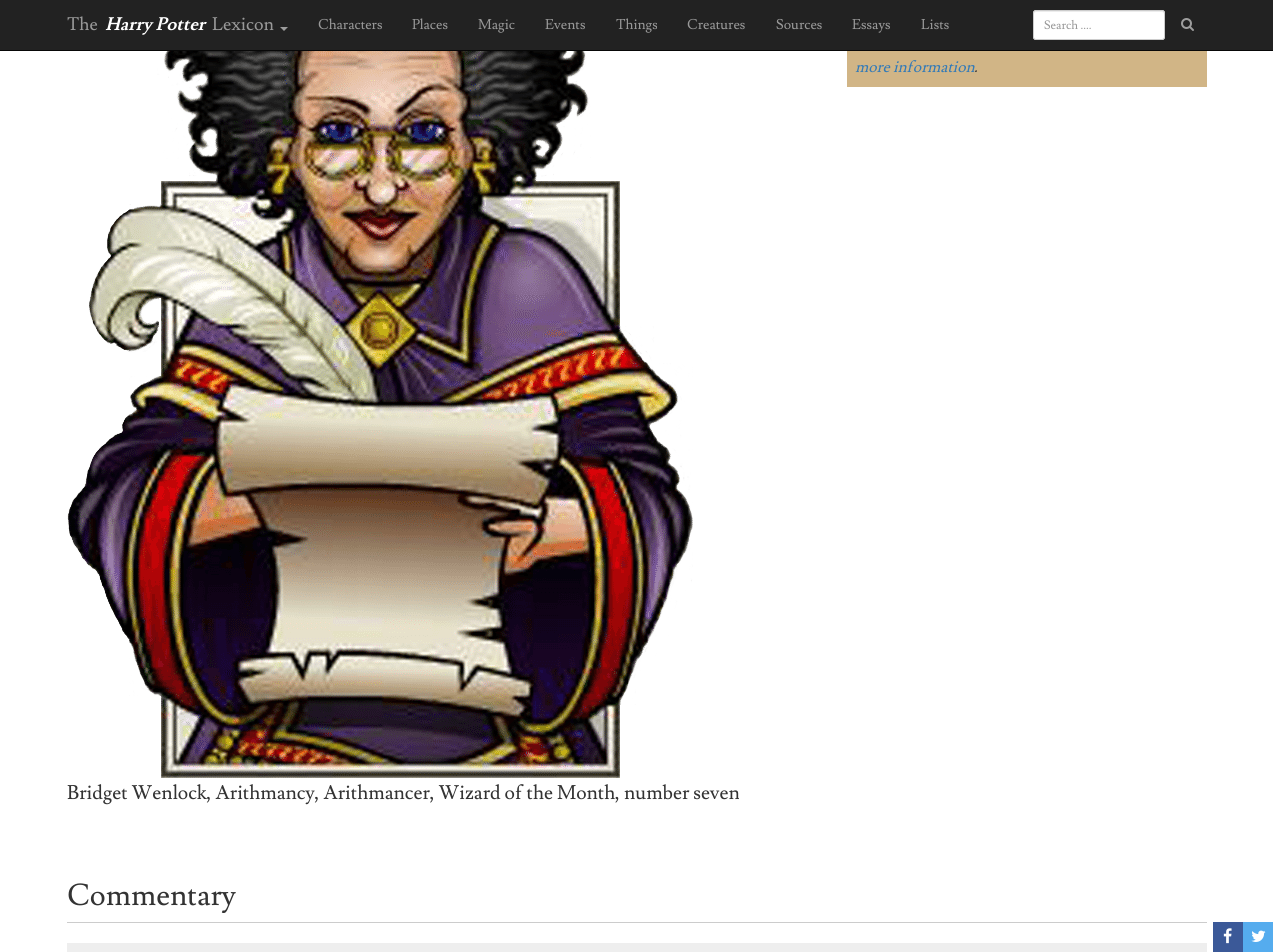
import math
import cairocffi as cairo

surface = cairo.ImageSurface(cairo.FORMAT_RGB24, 1273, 952)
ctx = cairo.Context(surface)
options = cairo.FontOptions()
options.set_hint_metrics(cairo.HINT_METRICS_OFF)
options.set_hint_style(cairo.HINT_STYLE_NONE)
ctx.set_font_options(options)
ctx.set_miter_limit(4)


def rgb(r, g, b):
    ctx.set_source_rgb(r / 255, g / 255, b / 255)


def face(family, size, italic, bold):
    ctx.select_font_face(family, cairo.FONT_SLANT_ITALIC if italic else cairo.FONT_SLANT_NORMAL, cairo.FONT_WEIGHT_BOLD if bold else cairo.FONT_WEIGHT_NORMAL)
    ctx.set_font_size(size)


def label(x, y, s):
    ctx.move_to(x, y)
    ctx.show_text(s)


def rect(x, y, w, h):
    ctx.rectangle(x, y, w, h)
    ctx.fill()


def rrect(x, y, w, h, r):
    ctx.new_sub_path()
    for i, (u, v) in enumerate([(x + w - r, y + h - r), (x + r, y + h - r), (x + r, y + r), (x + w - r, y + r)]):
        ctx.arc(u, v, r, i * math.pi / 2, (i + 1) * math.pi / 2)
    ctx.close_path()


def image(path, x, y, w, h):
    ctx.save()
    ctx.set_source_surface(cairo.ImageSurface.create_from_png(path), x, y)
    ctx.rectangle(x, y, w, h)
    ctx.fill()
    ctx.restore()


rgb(255, 255, 255)
ctx.paint()
rgb(34, 34, 34)
rect(0, 0, 1273, 50)
rgb(8, 8, 8)
rect(0, 50, 1273, 1)
face('Lusitana', 18, 0, 0)
rgb(153, 153, 153)
label(67, 30, 'The')
face('Lusitana', 18, 1, 1)
rgb(255, 255, 255)
label(105, 30, 'Harry Potter')
face('Lusitana', 18, 0, 0)
rgb(153, 153, 153)
label(212, 30, 'Lexicon')
rgb(157, 157, 157)
ctx.new_path()
ctx.move_to(280, 27)
ctx.line_to(288, 27)
ctx.line_to(284, 31)
ctx.close_path()
ctx.fill()
face('Lusitana', 14, 0, 0)
rgb(153, 153, 153)
label(318, 29, 'Characters')
label(412, 29, 'Places')
label(478, 29, 'Magic')
label(545, 29, 'Events')
label(616, 29, 'Things')
label(687, 29, 'Creatures')
label(776, 29, 'Sources')
label(852, 29, 'Essays')
label(921, 29, 'Lists')
rgb(255, 255, 255)
rrect(1033, 10, 132, 30, 3)
ctx.fill()
rgb(236, 236, 236)
ctx.new_path()
ctx.move_to(1036, 12)
ctx.line_to(1162, 12)
ctx.curve_to(1163, 12, 1164, 13, 1164, 14)
ctx.curve_to(1164, 13, 1164, 11, 1162, 11)
ctx.line_to(1036, 11)
ctx.curve_to(1034, 11, 1034, 13, 1034, 14)
ctx.curve_to(1034, 13, 1035, 12, 1036, 12)
ctx.close_path()
ctx.fill()
rrect(1033.5, 10.5, 131, 29, 2.5)
rgb(204, 204, 204)
ctx.set_line_width(1)
ctx.stroke()
face('Lusitana', 12, 0, 0)
rgb(153, 153, 153)
label(1044, 29, 'Search ....')
image('image0.png', 1181, 18, 13, 13)
rgb(209, 181, 134)
rect(847, 51, 360, 36)
face('Lusitana', 15.75, 1, 0)
rgb(51, 122, 183)
label(855, 72, 'more information')
rgb(51, 51, 51)
label(974, 72, '.')
image('image1.png', 67, 51, 626, 727)
face('Lusitana', 19.6, 0, 0)
label(67, 799, 'Bridget Wenlock, Arithmancy, Arithmancer, Wizard of the Month, number seven')
rgb(204, 204, 204)
rect(67, 922, 1140, 1)
face('Lusitana', 30, 0, 0)
rgb(51, 51, 51)
label(67, 905, 'Commentary')
rgb(238, 238, 238)
rect(67, 943, 1140, 9)
rgb(59, 89, 152)
rect(1213, 922, 30, 30)
image('image2.png', 1223, 928, 9, 16)
rgb(85, 172, 238)
rect(1243, 922, 30, 30)
image('image3.png', 1251, 930, 15, 12)
surface.write_to_png('render.png')
